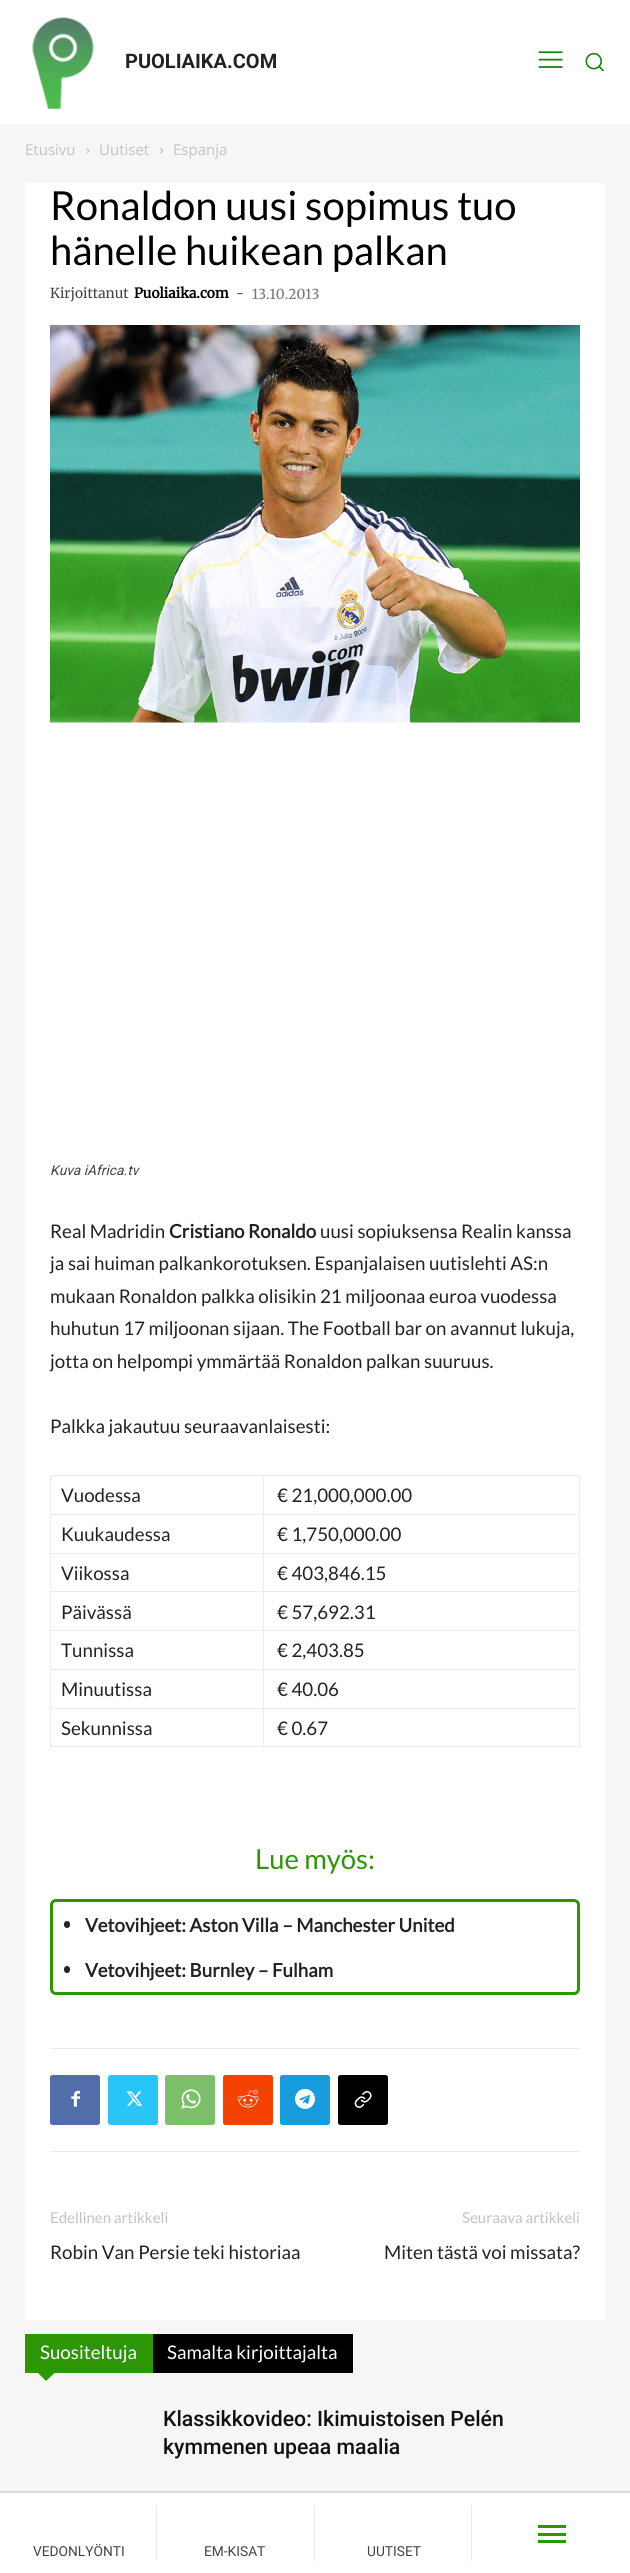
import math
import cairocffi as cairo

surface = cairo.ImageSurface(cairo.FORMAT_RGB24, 630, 2573)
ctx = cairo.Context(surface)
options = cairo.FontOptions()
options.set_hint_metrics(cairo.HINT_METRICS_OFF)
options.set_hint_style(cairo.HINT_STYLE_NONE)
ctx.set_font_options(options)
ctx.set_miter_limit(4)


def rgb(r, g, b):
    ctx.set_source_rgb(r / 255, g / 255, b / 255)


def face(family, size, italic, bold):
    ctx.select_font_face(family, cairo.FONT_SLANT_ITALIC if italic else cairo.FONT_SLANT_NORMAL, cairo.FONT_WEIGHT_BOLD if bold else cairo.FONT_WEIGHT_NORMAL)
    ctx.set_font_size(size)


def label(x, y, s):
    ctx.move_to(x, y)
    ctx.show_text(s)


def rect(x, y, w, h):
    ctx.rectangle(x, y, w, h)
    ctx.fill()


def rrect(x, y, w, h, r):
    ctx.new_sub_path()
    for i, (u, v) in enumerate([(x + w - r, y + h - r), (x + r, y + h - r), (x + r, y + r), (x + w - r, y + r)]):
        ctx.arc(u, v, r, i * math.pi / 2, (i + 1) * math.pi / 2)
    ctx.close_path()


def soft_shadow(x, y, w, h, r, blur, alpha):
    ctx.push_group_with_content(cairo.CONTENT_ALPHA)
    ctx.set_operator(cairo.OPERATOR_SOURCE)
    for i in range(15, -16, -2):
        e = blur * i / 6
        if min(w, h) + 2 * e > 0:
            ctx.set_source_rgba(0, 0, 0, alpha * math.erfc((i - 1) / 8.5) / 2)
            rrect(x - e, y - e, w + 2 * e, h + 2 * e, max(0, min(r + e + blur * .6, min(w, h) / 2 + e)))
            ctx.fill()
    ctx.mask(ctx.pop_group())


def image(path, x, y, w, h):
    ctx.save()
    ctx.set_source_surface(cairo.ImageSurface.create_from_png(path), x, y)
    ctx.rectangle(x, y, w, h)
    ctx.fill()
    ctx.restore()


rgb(246, 246, 246)
ctx.paint()
rgb(255, 255, 255)
rect(0, 0, 630, 124)
image('image0.png', 32, 17, 63, 92)
face('Roboto', 20, 0, 1)
rgb(34, 34, 34)
label(125, 68, 'PUOLIAIKA.COM')
image('image1.png', 538, 51, 25, 17)
image('image2.png', 585, 52, 19, 20)
face('Open Sans', 15, 0, 0)
rgb(195, 195, 195)
label(25, 155, 'Etusivu')
image('image3.png', 86, 148, 4, 6)
label(99, 155, 'Uutiset')
image('image4.png', 160, 147, 4, 7)
label(173, 155, 'Espanja')
rgb(255, 255, 255)
rect(25, 183, 580, 2137)
face('Lato', 40, 0, 0)
rgb(0, 0, 0)
label(50, 220, 'Ronaldon uusi sopimus tuo')
label(50, 265, 'hänelle huikean palkan')
face('Merriweather', 13.75, 0, 0)
rgb(68, 68, 68)
label(50, 298, 'Kirjoittanut')
face('Merriweather', 13.75, 0, 1)
rgb(0, 0, 0)
label(134, 298, 'Puoliaika.com')
face('Merriweather', 13.75, 0, 0)
rgb(68, 68, 68)
label(236, 298, '-')
rgb(118, 118, 118)
label(252, 299, '13.10.2013')
image('image5.png', 50, 325, 530, 398)
face('Roboto', 13.75, 1, 0)
rgb(68, 68, 68)
label(50, 1175, 'Kuva iAfrica.tv')
face('Lato', 18.75, 0, 0)
rgb(34, 34, 34)
label(50, 1238, 'Real Madridin')
face('Lato', 18.75, 0, 1)
label(169, 1238, 'Cristiano Ronaldo')
face('Lato', 18.75, 0, 0)
label(320, 1238, 'uusi sopiuksensa Realin kanssa')
label(50, 1270, 'ja sai huiman palkankorotuksen. Espanjalaisen uutislehti AS:n')
label(50, 1303, 'mukaan Ronaldon palkka olisikin 21 miljoonaa euroa vuodessa')
label(50, 1335, 'huhutun 17 miljoonan sijaan. The Football bar on avannut lukuja,')
label(50, 1368, 'jotta on helpompi ymmärtää Ronaldon palkan suuruus.')
label(50, 1433, 'Palkka jakautuu seuraavanlaisesti:')
rgb(237, 237, 237)
rect(263, 1475, 317, 1)
rect(263, 1514, 317, 1)
rect(263, 1553, 317, 1)
rect(263, 1591, 317, 1)
rect(263, 1630, 317, 1)
rect(263, 1669, 317, 1)
rect(263, 1708, 317, 1)
rect(579, 1708, 1, 40)
rect(263, 1746, 317, 1)
rect(263, 1708, 1, 40)
rect(50, 1708, 214, 1)
rect(263, 1669, 1, 40)
rect(50, 1669, 214, 1)
rect(263, 1630, 1, 40)
rect(50, 1630, 214, 1)
rect(263, 1591, 1, 40)
rect(50, 1591, 214, 1)
rect(263, 1553, 1, 40)
rect(50, 1553, 214, 1)
rect(263, 1514, 1, 40)
rect(50, 1514, 214, 1)
rect(263, 1475, 1, 40)
rect(50, 1475, 214, 1)
rect(50, 1746, 214, 1)
rect(50, 1708, 1, 40)
rect(50, 1669, 1, 40)
rect(50, 1630, 1, 40)
rect(50, 1591, 1, 40)
rect(50, 1553, 1, 40)
rect(50, 1514, 1, 40)
rect(50, 1475, 1, 40)
rgb(34, 34, 34)
label(61, 1502, 'Vuodessa')
rgb(237, 237, 237)
rect(579, 1669, 1, 40)
rect(579, 1630, 1, 40)
rect(579, 1591, 1, 40)
rect(579, 1553, 1, 40)
rect(579, 1514, 1, 40)
rect(579, 1475, 1, 40)
rgb(34, 34, 34)
label(277, 1502, '€ 21,000,000.00')
label(61, 1541, 'Kuukaudessa')
label(277, 1541, '€ 1,750,000.00')
label(61, 1580, 'Viikossa')
label(277, 1580, '€ 403,846.15')
label(61, 1619, 'Päivässä')
label(277, 1619, '€ 57,692.31')
label(61, 1657, 'Tunnissa')
label(277, 1657, '€ 2,403.85')
label(61, 1696, 'Minuutissa')
label(277, 1696, '€ 40.06')
label(61, 1735, 'Sekunnissa')
label(277, 1735, '€ 0.67')
face('Lato', 27.5, 0, 0)
rgb(45, 150, 4)
label(255, 1869, 'Lue myös:')
rrect(51.5, 1900.5, 527, 93, 4.5)
ctx.set_line_width(3)
ctx.stroke()
rgb(34, 34, 34)
rrect(64, 1921, 6, 7, 3)
ctx.fill()
face('Lato', 18.75, 0, 1)
label(85, 1932, 'Vetovihjeet: Aston Villa – Manchester United')
rrect(64, 1966, 6, 7, 3)
ctx.fill()
label(85, 1977, 'Vetovihjeet: Burnley – Fulham')
rgb(237, 237, 237)
rect(50, 2048, 530, 1)
rect(50, 2151, 530, 1)
rgb(81, 110, 171)
rrect(50, 2075, 50, 50, 2.5)
ctx.fill()
image('image6.png', 71, 2090, 9, 17)
rgb(41, 197, 246)
rrect(108, 2075, 50, 50, 2.5)
ctx.fill()
image('image7.png', 126, 2091, 17, 15)
rgb(123, 191, 106)
rrect(165, 2075, 50, 50, 2.5)
ctx.fill()
image('image8.png', 181, 2089, 20, 20)
rgb(245, 66, 0)
rrect(223, 2075, 50, 50, 2.5)
ctx.fill()
image('image9.png', 237, 2090, 22, 18)
rgb(23, 156, 222)
rrect(280, 2075, 50, 50, 2.5)
ctx.fill()
image('image10.png', 295, 2088, 20, 21)
rgb(0, 0, 0)
rrect(338, 2075, 50, 50, 2.5)
ctx.fill()
image('image11.png', 354, 2091, 18, 17)
face('Lato', 15, 0, 0)
rgb(195, 195, 195)
label(50, 2223, 'Edellinen artikkeli')
face('Lato', 18.75, 0, 0)
rgb(34, 34, 34)
label(50, 2259, 'Robin Van Persie teki historiaa')
face('Lato', 15, 0, 0)
rgb(195, 195, 195)
label(462, 2223, 'Seuraava artikkeli')
face('Lato', 18.75, 0, 0)
rgb(34, 34, 34)
label(384, 2259, 'Miten tästä voi missata?')
rgb(45, 150, 4)
rect(25, 2334, 128, 39)
rgb(255, 255, 255)
label(40, 2359, 'Suositeltuja')
rgb(45, 150, 4)
ctx.new_path()
ctx.move_to(37.5, 2372.5)
ctx.line_to(55, 2372.5)
ctx.line_to(46, 2381)
ctx.close_path()
ctx.fill()
rgb(0, 0, 0)
rect(153, 2334, 200, 39)
rgb(255, 255, 255)
label(167, 2359, 'Samalta kirjoittajalta')
face('Roboto Medium', 21.25, 0, 0)
rgb(17, 17, 17)
label(163, 2426, 'Klassikkovideo: Ikimuistoisen Pelén')
label(163, 2454, 'kymmenen upeaa maalia')
rgb(0, 0, 0)
soft_shadow(-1, 2491, 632, 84, 0, 0.5, 0.12)
rgb(255, 255, 255)
rect(0, 2493, 630, 80)
rgb(45, 150, 4)
rect(538, 2533, 28, 3)
rect(538, 2525, 28, 3)
rect(538, 2540, 28, 3)
face('Roboto', 13.75, 0, 0)
rgb(68, 68, 68)
label(33, 2556, 'VEDONLYÖNTI')
rgb(235, 235, 235)
rect(156, 2505, 1, 56)
rgb(68, 68, 68)
label(204, 2556, 'EM-KISAT')
rgb(235, 235, 235)
rect(314, 2505, 1, 56)
rgb(68, 68, 68)
label(367, 2556, 'UUTISET')
rgb(235, 235, 235)
rect(471, 2505, 1, 56)
surface.write_to_png('render.png')
